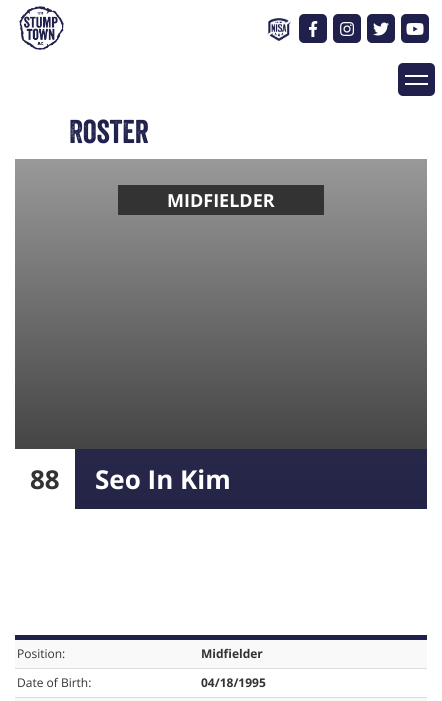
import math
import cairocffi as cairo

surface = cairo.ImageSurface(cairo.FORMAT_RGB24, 442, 701)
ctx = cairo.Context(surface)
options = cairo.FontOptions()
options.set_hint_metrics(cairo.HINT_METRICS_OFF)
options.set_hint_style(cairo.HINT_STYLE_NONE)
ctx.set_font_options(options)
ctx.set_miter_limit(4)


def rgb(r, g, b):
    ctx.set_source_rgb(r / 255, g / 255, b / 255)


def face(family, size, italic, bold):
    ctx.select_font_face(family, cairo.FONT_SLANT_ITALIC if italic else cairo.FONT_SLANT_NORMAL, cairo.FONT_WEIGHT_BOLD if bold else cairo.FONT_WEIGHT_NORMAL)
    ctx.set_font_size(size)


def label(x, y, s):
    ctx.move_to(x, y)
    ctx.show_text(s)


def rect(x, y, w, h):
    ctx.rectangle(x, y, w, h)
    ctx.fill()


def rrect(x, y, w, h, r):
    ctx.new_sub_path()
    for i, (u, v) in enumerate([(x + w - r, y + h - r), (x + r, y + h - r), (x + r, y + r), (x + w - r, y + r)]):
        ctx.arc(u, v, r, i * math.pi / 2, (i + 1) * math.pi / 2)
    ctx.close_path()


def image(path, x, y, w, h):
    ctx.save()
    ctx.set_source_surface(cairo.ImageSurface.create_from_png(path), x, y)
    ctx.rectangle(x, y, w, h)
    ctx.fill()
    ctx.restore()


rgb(255, 255, 255)
ctx.paint()
image('image0.png', 19, 6, 45, 44)
image('image1.png', 267, 18, 24, 23)
rgb(31, 32, 75)
rrect(299, 14, 28, 29, 5)
ctx.fill()
image('image2.png', 309, 21, 9, 16)
rrect(333, 14, 28, 29, 5)
ctx.fill()
image('image3.png', 340, 22, 15, 14)
rrect(367, 14, 28, 29, 5)
ctx.fill()
image('image4.png', 373, 22, 16, 14)
rrect(401, 14, 28, 29, 5)
ctx.fill()
image('image5.png', 406, 23, 18, 12)
rrect(398, 63, 37, 33, 5)
ctx.fill()
rgb(255, 255, 255)
rect(405, 75, 23, 2)
rect(405, 83, 23, 2)
face('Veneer', 32, 0, 0)
rgb(31, 32, 75)
label(69, 143, 'Roster')
gradient = cairo.LinearGradient(221, 159, 221, 509)
gradient.add_color_stop_rgba(0, 0.6, 0.6, 0.6, 1)
gradient.add_color_stop_rgba(1, 0.2, 0.2, 0.2, 1)
ctx.set_source(gradient)
rect(15, 159, 412, 290)
gradient = cairo.LinearGradient(221, 159, 221, 509)
gradient.add_color_stop_rgba(0, 0.216, 0.22, 0.357, 1)
gradient.add_color_stop_rgba(1, 0.137, 0.141, 0.275, 1)
ctx.set_source(gradient)
rect(75, 449, 352, 60)
rgb(51, 51, 51)
rect(118, 185, 206, 30)
face('Open Sans', 18, 0, 1)
rgb(255, 255, 255)
label(167, 207, 'MIDFIELDER')
face('Open Sans', 26, 0, 1)
rgb(51, 51, 51)
label(30, 489, '88')
rgb(255, 255, 255)
label(95, 489, 'Seo In Kim')
rgb(31, 32, 75)
rect(15, 635, 412, 5)
rgb(249, 249, 249)
rect(15, 640, 412, 28)
rgb(221, 221, 221)
rect(15, 668, 412, 1)
face('Open Sans', 12, 0, 0)
rgb(51, 51, 51)
label(17, 658, 'Position:')
face('Open Sans', 12, 0, 1)
label(201, 658, 'Midfielder')
rgb(221, 221, 221)
rect(15, 697, 412, 1)
face('Open Sans', 12, 0, 0)
rgb(51, 51, 51)
label(17, 687, 'Date of Birth:')
face('Open Sans', 12, 0, 1)
label(201, 687, '04/18/1995')
rgb(249, 249, 249)
rect(15, 698, 412, 3)
surface.write_to_png('render.png')
